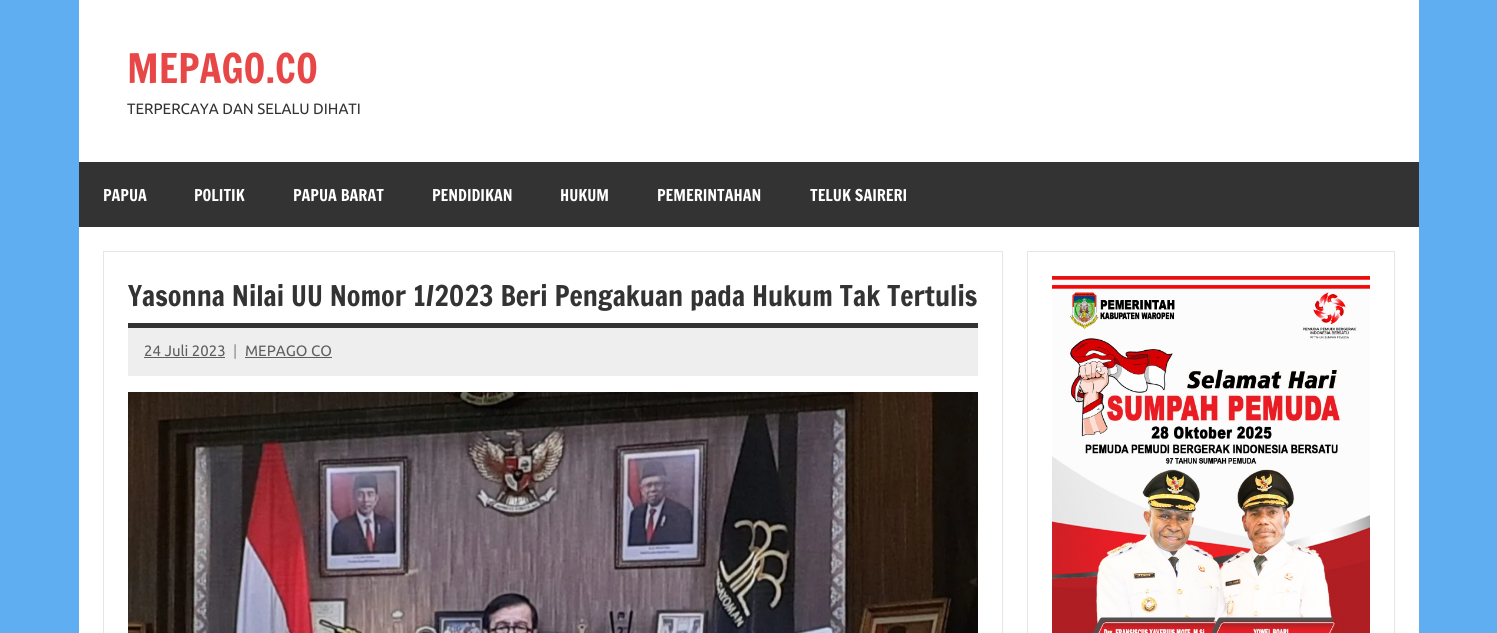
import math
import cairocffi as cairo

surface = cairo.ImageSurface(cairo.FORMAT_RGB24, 1497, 633)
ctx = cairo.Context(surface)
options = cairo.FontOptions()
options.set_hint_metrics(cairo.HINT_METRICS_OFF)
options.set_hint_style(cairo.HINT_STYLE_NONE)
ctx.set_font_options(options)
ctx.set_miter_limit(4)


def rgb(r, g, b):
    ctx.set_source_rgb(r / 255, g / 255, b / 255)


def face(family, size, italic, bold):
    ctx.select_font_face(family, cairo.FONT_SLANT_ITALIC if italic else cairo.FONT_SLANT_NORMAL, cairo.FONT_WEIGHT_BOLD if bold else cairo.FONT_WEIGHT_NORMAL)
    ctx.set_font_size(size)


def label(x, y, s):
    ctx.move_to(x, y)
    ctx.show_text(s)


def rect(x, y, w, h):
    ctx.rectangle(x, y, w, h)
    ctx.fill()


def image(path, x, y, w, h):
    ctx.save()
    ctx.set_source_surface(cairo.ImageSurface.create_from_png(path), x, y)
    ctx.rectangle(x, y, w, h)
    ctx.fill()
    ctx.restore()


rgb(96, 174, 242)
ctx.paint()
rgb(255, 255, 255)
rect(79, 0, 1340, 162)
face('Francois One', 40, 0, 0)
rgb(232, 71, 71)
label(127, 83, 'MEPAGO.CO')
face('Ubuntu', 15, 0, 0)
rgb(51, 51, 51)
label(127, 114, 'TERPERCAYA DAN SELALU DIHATI')
rect(79, 162, 1340, 65)
face('Francois One', 16, 0, 0)
rgb(255, 255, 255)
label(103, 201, 'PAPUA')
label(194, 201, 'POLITIK')
label(293, 201, 'PAPUA BARAT')
label(432, 201, 'PENDIDIKAN')
label(560, 201, 'HUKUM')
label(657, 201, 'PEMERINTAHAN')
label(810, 201, 'TELUK SAIRERI')
rect(79, 227, 1340, 406)
ctx.rectangle(103.5, 251.5, 899, 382)
rgb(230, 230, 230)
ctx.set_line_width(1)
ctx.stroke()
rgb(51, 51, 51)
rect(128, 323, 850, 5)
face('Francois One', 28, 0, 0)
label(128, 306, 'Yasonna Nilai UU Nomor 1/2023 Beri Pengakuan pada Hukum Tak Tertulis')
rgb(238, 238, 238)
rect(128, 328, 850, 48)
face('Ubuntu', 15, 0, 0)
rgb(95, 95, 95)
label(144, 356, '24 Juli 2023')
rect(144, 357, 81, 1)
rgb(143, 143, 143)
label(233, 356, '|')
rgb(95, 95, 95)
label(245, 356, 'MEPAGO CO')
rect(245, 357, 87, 1)
image('image0.png', 128, 392, 850, 241)
ctx.rectangle(1027.5, 251.5, 367, 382)
rgb(230, 230, 230)
ctx.stroke()
image('image1.png', 1052, 276, 318, 357)
surface.write_to_png('render.png')
